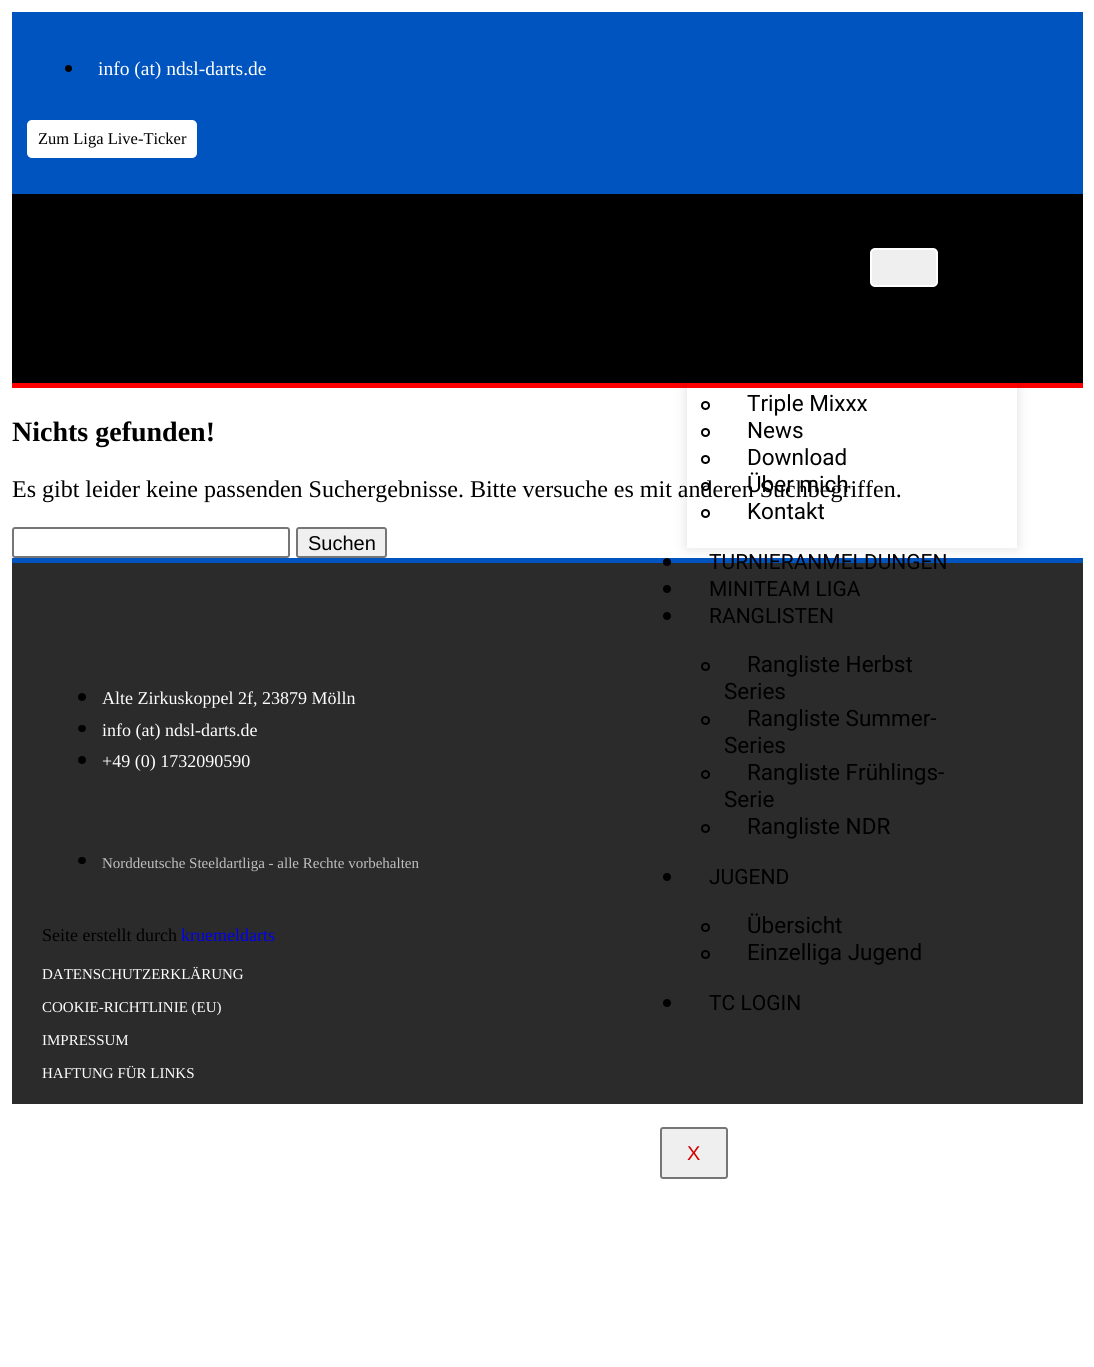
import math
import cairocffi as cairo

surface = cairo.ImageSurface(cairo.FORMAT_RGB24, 1094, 1367)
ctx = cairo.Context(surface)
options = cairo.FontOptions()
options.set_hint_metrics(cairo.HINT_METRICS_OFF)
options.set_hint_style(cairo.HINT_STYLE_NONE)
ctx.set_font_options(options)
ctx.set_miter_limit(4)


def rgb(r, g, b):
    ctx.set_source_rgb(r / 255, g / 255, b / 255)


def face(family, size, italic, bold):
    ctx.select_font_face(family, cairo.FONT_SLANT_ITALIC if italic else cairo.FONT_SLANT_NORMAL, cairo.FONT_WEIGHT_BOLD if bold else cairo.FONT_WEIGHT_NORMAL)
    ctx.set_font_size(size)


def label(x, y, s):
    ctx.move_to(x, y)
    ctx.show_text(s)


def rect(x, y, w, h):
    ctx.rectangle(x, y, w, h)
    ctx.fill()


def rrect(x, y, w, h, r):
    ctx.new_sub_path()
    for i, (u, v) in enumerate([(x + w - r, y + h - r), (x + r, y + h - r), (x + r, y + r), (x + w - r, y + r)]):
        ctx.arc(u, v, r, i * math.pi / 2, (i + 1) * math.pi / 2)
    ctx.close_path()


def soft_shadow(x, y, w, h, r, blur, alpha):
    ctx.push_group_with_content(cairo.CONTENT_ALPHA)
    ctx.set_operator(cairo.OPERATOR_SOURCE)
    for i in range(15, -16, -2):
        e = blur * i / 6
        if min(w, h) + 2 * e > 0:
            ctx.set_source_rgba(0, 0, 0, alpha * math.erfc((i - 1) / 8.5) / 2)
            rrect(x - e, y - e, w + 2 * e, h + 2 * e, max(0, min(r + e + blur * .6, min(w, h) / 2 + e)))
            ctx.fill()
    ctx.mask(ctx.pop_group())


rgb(255, 255, 255)
ctx.paint()
rgb(0, 84, 191)
rect(12, 12, 1071, 182)
rgb(0, 0, 0)
ctx.arc(68.5, 68.5, 3.5, 0, 2 * math.pi)
ctx.fill()
face('Liberation Serif', 19.5, 0, 0)
rgb(255, 255, 255)
label(98, 75, 'info (at) ndsl-darts.de')
rrect(27, 120, 170, 38, 5)
ctx.fill()
face('Liberation Serif', 16.5, 0, 0)
rgb(0, 0, 0)
label(38, 144, 'Zum Liga Live-Ticker')
rect(12, 194, 1071, 189)
rgb(255, 0, 0)
rect(12, 383, 1071, 5)
rgb(239, 239, 239)
rrect(871, 249, 66, 37, 4)
ctx.fill_preserve()
rgb(255, 255, 255)
ctx.stroke()
rgb(43, 43, 43)
rect(12, 563, 1071, 541)
rgb(0, 84, 191)
rect(12, 558, 1071, 5)
ctx.save()
ctx.set_fill_rule(cairo.FILL_RULE_EVEN_ODD)
ctx.new_path()
ctx.move_to(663, 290)
ctx.line_to(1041, 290)
ctx.line_to(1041, 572)
ctx.line_to(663, 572)
ctx.close_path()
ctx.move_to(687, 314)
ctx.line_to(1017, 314)
ctx.line_to(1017, 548)
ctx.line_to(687, 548)
ctx.close_path()
ctx.clip()
rgb(0, 0, 0)
soft_shadow(687, 314, 330, 234, 0, 7.5, 0.12)
ctx.restore()
ctx.arc(705.5, 405.5, 3.5, 0, 2 * math.pi)
rgb(0, 0, 0)
ctx.stroke()
face('Roboto', 22.5, 0, 0)
label(747, 411, 'Triple Mixxx')
ctx.new_path()
ctx.arc(705.5, 432.5, 3.5, 0, 2 * math.pi)
ctx.stroke()
label(747, 438, 'News')
ctx.new_path()
ctx.arc(705.5, 459.5, 3.5, 0, 2 * math.pi)
ctx.stroke()
label(747, 465, 'Download')
ctx.new_path()
ctx.arc(705.5, 486.5, 3.5, 0, 2 * math.pi)
ctx.stroke()
face('Liberation Serif', 24, 0, 0)
label(12, 497, 'Es gibt leider keine passenden Suchergebnisse. Bitte versuche es mit anderen Suchbegriffen.')
face('Roboto', 22.5, 0, 0)
label(747, 492, 'Über mich')
ctx.new_path()
ctx.arc(705.5, 513.5, 3.5, 0, 2 * math.pi)
ctx.stroke()
label(747, 519, 'Kontakt')
ctx.new_path()
ctx.arc(667, 562, 4, 0, 2 * math.pi)
ctx.fill()
face('Roboto', 21, 0, 0)
label(709, 569, 'TURNIERANMELDUNGEN')
ctx.new_path()
ctx.arc(667, 589, 4, 0, 2 * math.pi)
ctx.fill()
label(709, 596, 'MINITEAM LIGA')
ctx.new_path()
ctx.arc(667, 616, 4, 0, 2 * math.pi)
ctx.fill()
label(709, 623, 'RANGLISTEN')
ctx.new_path()
ctx.arc(705.5, 666.5, 3.5, 0, 2 * math.pi)
ctx.stroke()
face('Roboto', 22.5, 0, 0)
label(747, 672, 'Rangliste Herbst')
label(724, 699, 'Series')
ctx.new_path()
ctx.arc(705.5, 720.5, 3.5, 0, 2 * math.pi)
ctx.stroke()
label(747, 726, 'Rangliste Summer-')
label(724, 753, 'Series')
ctx.new_path()
ctx.arc(705.5, 774.5, 3.5, 0, 2 * math.pi)
ctx.stroke()
label(747, 780, 'Rangliste Frühlings-')
label(724, 807, 'Serie')
ctx.new_path()
ctx.arc(705.5, 828.5, 3.5, 0, 2 * math.pi)
ctx.stroke()
label(747, 834, 'Rangliste NDR')
ctx.new_path()
ctx.arc(667, 877, 4, 0, 2 * math.pi)
ctx.fill()
face('Roboto', 21, 0, 0)
label(709, 884, 'JUGEND')
ctx.new_path()
ctx.arc(705.5, 927.5, 3.5, 0, 2 * math.pi)
ctx.stroke()
face('Roboto', 22.5, 0, 0)
label(747, 933, 'Übersicht')
ctx.new_path()
ctx.arc(705.5, 954.5, 3.5, 0, 2 * math.pi)
ctx.stroke()
label(747, 960, 'Einzelliga Jugend')
ctx.new_path()
ctx.arc(667, 1003, 4, 0, 2 * math.pi)
ctx.fill()
face('Roboto', 21, 0, 0)
label(709, 1010, 'TC LOGIN')
rgb(239, 239, 239)
rrect(661, 1128, 66, 50, 2)
ctx.fill_preserve()
rgb(118, 118, 118)
ctx.stroke()
face('Liberation Sans', 20, 0, 0)
rgb(211, 0, 0)
label(687, 1160, 'X')
face('Liberation Serif', 28, 0, 1)
rgb(0, 0, 0)
label(12, 441, 'Nichts gefunden!')
rrect(13, 528, 276, 29, 2)
rgb(118, 118, 118)
ctx.stroke()
rgb(239, 239, 239)
rrect(297, 528, 89, 29, 2)
ctx.fill_preserve()
rgb(118, 118, 118)
ctx.stroke()
face('Liberation Sans', 20, 0, 0)
rgb(0, 0, 0)
label(308, 550, 'Suchen')
ctx.new_path()
ctx.arc(82, 697, 4, 0, 2 * math.pi)
ctx.fill()
face('Liberation Serif', 18, 0, 0)
rgb(255, 255, 255)
label(102, 704, 'Alte Zirkuskoppel 2f, 23879 Mölln')
rgb(0, 0, 0)
rrect(78, 725, 8, 7, 3.5)
ctx.fill()
rgb(255, 255, 255)
label(102, 736, 'info (at) ndsl-darts.de')
rgb(0, 0, 0)
ctx.new_path()
ctx.arc(82, 760, 4, 0, 2 * math.pi)
ctx.fill()
rgb(255, 255, 255)
label(102, 767, '+49 (0) 1732090590')
rgb(0, 0, 0)
rrect(78, 857, 8, 7, 3.5)
ctx.fill()
face('Liberation Serif', 15, 0, 0)
rgb(191, 191, 191)
label(102, 868, 'Norddeutsche Steeldartliga - alle Rechte vorbehalten')
face('Liberation Serif', 18, 0, 0)
rgb(0, 0, 0)
label(42, 941, 'Seite erstellt durch')
rgb(0, 0, 238)
label(181, 941, 'kruemeldarts')
face('Liberation Serif', 15, 0, 0)
rgb(255, 255, 255)
label(42, 979, 'DATENSCHUTZERKLÄRUNG')
label(42, 1012, 'COOKIE-RICHTLINIE (EU)')
label(42, 1045, 'IMPRESSUM')
label(42, 1078, 'HAFTUNG FÜR LINKS')
surface.write_to_png('render.png')
